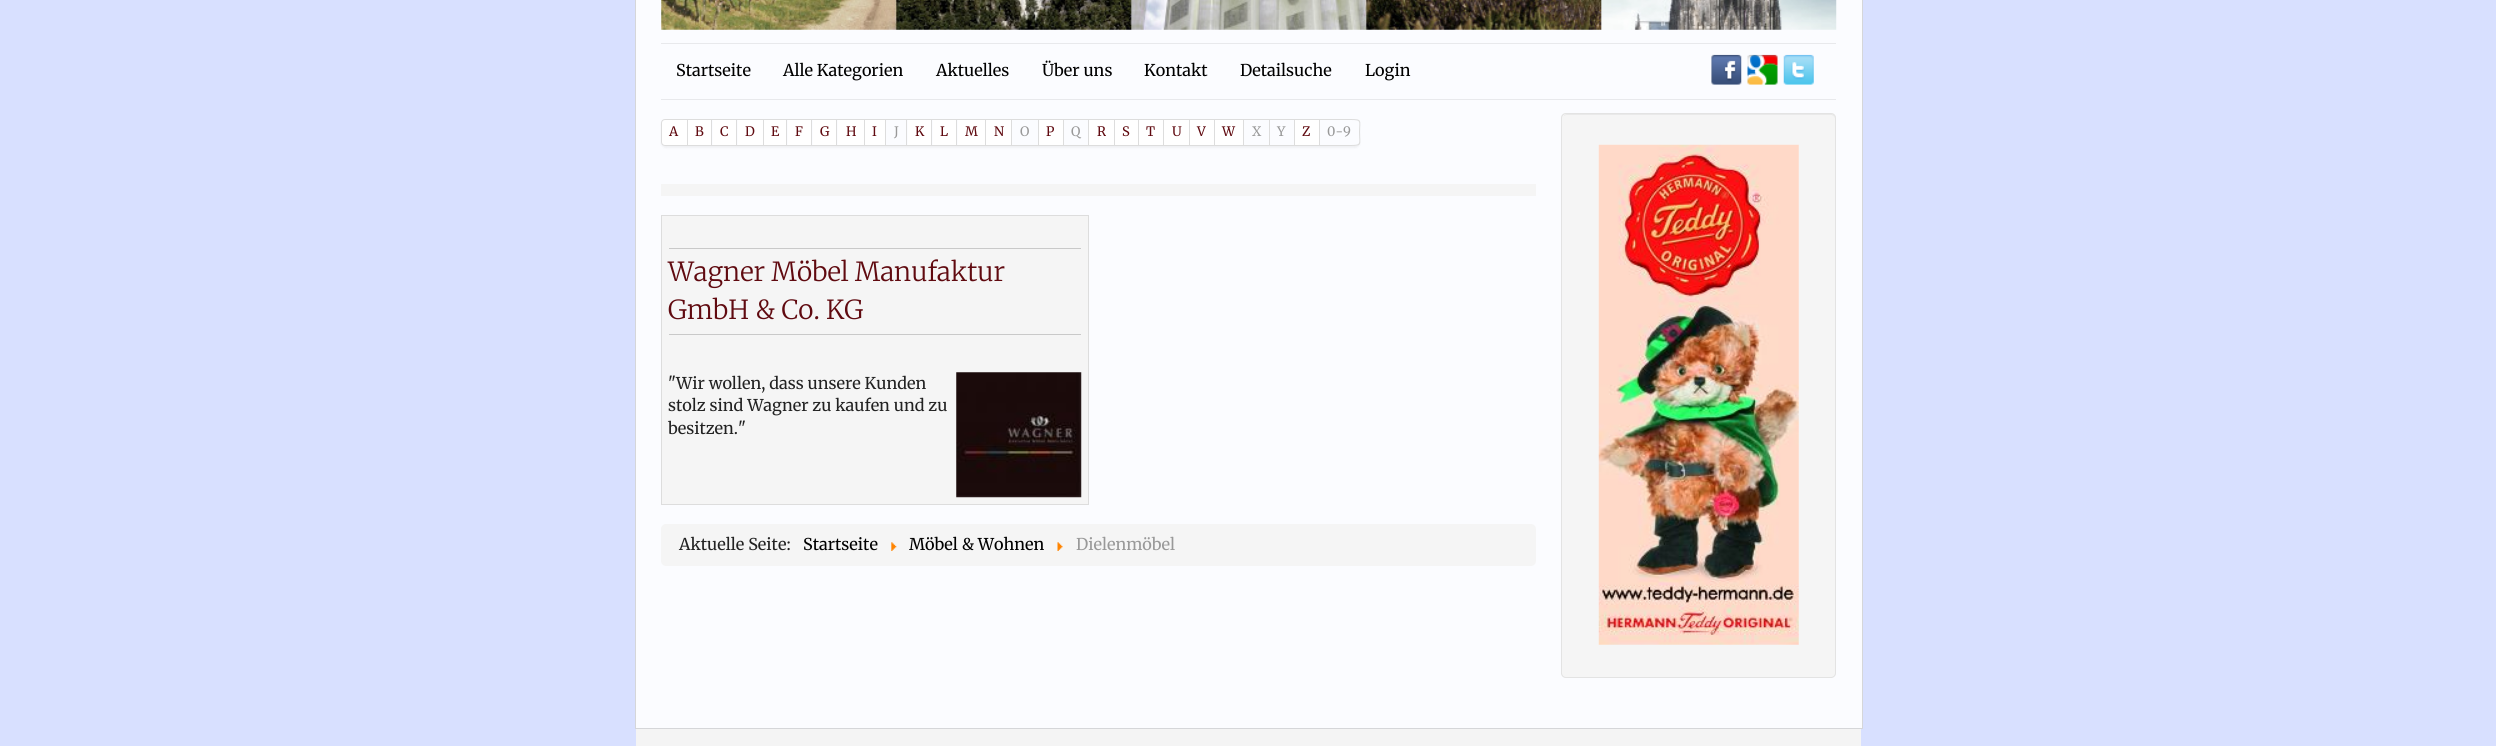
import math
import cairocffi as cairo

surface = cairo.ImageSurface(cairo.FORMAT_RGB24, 2496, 746)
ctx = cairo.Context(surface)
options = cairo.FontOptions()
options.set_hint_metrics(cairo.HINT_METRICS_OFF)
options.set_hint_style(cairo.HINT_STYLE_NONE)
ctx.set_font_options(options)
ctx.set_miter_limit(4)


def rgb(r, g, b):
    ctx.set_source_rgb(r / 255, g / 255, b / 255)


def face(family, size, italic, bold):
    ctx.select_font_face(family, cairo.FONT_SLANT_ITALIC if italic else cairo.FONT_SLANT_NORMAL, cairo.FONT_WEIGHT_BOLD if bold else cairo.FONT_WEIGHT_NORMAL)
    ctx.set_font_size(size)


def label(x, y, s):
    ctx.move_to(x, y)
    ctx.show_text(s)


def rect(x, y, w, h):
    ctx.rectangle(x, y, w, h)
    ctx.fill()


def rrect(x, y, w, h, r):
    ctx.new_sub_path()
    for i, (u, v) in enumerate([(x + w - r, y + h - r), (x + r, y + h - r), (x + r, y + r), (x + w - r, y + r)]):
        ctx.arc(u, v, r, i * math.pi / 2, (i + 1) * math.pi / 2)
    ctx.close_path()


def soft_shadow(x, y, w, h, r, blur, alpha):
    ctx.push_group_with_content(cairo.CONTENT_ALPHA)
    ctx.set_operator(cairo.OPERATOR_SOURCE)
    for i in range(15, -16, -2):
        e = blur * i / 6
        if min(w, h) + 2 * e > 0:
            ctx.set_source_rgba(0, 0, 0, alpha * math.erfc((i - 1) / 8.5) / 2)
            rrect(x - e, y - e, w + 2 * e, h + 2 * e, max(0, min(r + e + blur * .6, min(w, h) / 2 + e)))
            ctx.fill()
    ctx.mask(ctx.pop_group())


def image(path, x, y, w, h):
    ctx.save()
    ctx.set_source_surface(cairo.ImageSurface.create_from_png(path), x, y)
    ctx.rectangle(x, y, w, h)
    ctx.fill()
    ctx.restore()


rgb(216, 224, 255)
ctx.paint()
ctx.set_source_rgba(1, 1, 1, 0.9)
ctx.rectangle(635.5, -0.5, 1227, 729)
ctx.fill_preserve()
rgb(213, 214, 217)
ctx.set_line_width(1)
ctx.stroke()
image('image0.png', 661, 0, 1176, 30)
rgb(232, 233, 236)
rect(661, 43, 1175, 1)
rect(661, 99, 1175, 1)
face('Merriweather', 16.25, 0, 0)
rgb(0, 0, 0)
label(676, 76, 'Startseite')
label(783, 76, 'Alle Kategorien')
label(936, 76, 'Aktuelles')
label(1042, 76, 'Über uns')
label(1144, 76, 'Kontakt')
label(1240, 76, 'Detailsuche')
label(1365, 76, 'Login')
image('image1.png', 1711, 54, 31, 31)
image('image2.png', 1747, 54, 31, 31)
image('image3.png', 1783, 54, 31, 31)
ctx.save()
ctx.set_fill_rule(cairo.FILL_RULE_EVEN_ODD)
ctx.new_path()
ctx.move_to(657, 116)
ctx.line_to(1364, 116)
ctx.line_to(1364, 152)
ctx.line_to(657, 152)
ctx.close_path()
ctx.move_to(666, 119)
ctx.line_to(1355, 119)
ctx.curve_to(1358, 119, 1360, 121, 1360, 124)
ctx.line_to(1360, 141)
ctx.curve_to(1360, 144, 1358, 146, 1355, 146)
ctx.line_to(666, 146)
ctx.curve_to(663, 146, 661, 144, 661, 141)
ctx.line_to(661, 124)
ctx.curve_to(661, 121, 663, 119, 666, 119)
ctx.close_path()
ctx.clip()
rgb(0, 0, 0)
soft_shadow(661, 120, 699, 28, 5, 1, 0.05)
ctx.restore()
rgb(255, 255, 255)
ctx.new_path()
ctx.move_to(665, 119.5)
ctx.line_to(687.5, 119.5)
ctx.line_to(687.5, 145.5)
ctx.line_to(665, 145.5)
ctx.curve_to(663, 145.5, 661.5, 144, 661.5, 142)
ctx.line_to(661.5, 123)
ctx.curve_to(661.5, 121, 663, 119.5, 665, 119.5)
ctx.close_path()
ctx.fill_preserve()
rgb(221, 221, 221)
ctx.stroke()
face('Merriweather', 13, 0, 0)
rgb(96, 10, 16)
label(669, 136, 'A')
rgb(255, 255, 255)
rect(688, 120, 23, 25)
rgb(221, 221, 221)
rect(688, 119, 632, 1)
rect(711, 119, 1, 27)
rect(688, 145, 25, 1)
rgb(96, 10, 16)
label(695, 136, 'B')
rgb(255, 255, 255)
rect(713, 120, 23, 25)
rgb(221, 221, 221)
rect(736, 119, 1, 27)
rect(713, 145, 25, 1)
rgb(96, 10, 16)
label(720, 136, 'C')
rgb(255, 255, 255)
rect(738, 120, 25, 25)
rgb(221, 221, 221)
rect(763, 119, 1, 27)
rect(738, 145, 26, 1)
rgb(96, 10, 16)
label(745, 136, 'D')
rgb(255, 255, 255)
rect(764, 120, 22, 25)
rgb(221, 221, 221)
rect(786, 119, 1, 27)
rect(764, 145, 24, 1)
rgb(96, 10, 16)
label(771, 136, 'E')
rgb(255, 255, 255)
rect(788, 120, 23, 25)
rgb(221, 221, 221)
rect(811, 119, 1, 27)
rect(788, 145, 25, 1)
rgb(96, 10, 16)
label(795, 136, 'F')
rgb(255, 255, 255)
rect(813, 120, 23, 25)
rgb(221, 221, 221)
rect(836, 119, 1, 27)
rect(813, 145, 25, 1)
rgb(96, 10, 16)
label(820, 136, 'G')
rgb(255, 255, 255)
rect(838, 120, 26, 25)
rgb(221, 221, 221)
rect(864, 119, 1, 27)
rect(838, 145, 27, 1)
rgb(96, 10, 16)
label(846, 136, 'H')
rgb(255, 255, 255)
rect(865, 120, 20, 25)
rgb(221, 221, 221)
rect(885, 119, 1, 27)
rect(865, 145, 21, 1)
rgb(96, 10, 16)
label(872, 136, 'I')
rgb(221, 221, 221)
rect(906, 119, 1, 27)
rect(886, 145, 22, 1)
rgb(153, 153, 153)
label(894, 136, 'J')
rgb(255, 255, 255)
rect(908, 120, 23, 25)
rgb(221, 221, 221)
rect(931, 119, 1, 27)
rect(908, 145, 25, 1)
rgb(96, 10, 16)
label(915, 136, 'K')
rgb(255, 255, 255)
rect(933, 120, 23, 25)
rgb(221, 221, 221)
rect(956, 119, 1, 27)
rect(933, 145, 25, 1)
rgb(96, 10, 16)
label(940, 136, 'L')
rgb(255, 255, 255)
rect(958, 120, 27, 25)
rgb(221, 221, 221)
rect(985, 119, 1, 27)
rect(958, 145, 28, 1)
rgb(96, 10, 16)
label(965, 136, 'M')
rgb(255, 255, 255)
rect(986, 120, 25, 25)
rgb(221, 221, 221)
rect(1011, 119, 1, 27)
rect(986, 145, 27, 1)
rgb(96, 10, 16)
label(994, 136, 'N')
rgb(221, 221, 221)
rect(1038, 119, 1, 27)
rect(1013, 145, 26, 1)
rgb(153, 153, 153)
label(1020, 136, 'O')
rgb(255, 255, 255)
rect(1039, 120, 24, 25)
rgb(221, 221, 221)
rect(1063, 119, 1, 27)
rect(1039, 145, 25, 1)
rgb(96, 10, 16)
label(1046, 136, 'P')
rgb(221, 221, 221)
rect(1088, 119, 1, 27)
rect(1064, 145, 25, 1)
rgb(153, 153, 153)
label(1071, 136, 'Q')
rgb(255, 255, 255)
rect(1089, 120, 25, 25)
rgb(221, 221, 221)
rect(1114, 119, 1, 27)
rect(1089, 145, 26, 1)
rgb(96, 10, 16)
label(1097, 136, 'R')
rgb(255, 255, 255)
rect(1115, 120, 23, 25)
rgb(221, 221, 221)
rect(1138, 119, 1, 27)
rect(1115, 145, 24, 1)
rgb(96, 10, 16)
label(1122, 136, 'S')
rgb(255, 255, 255)
rect(1139, 120, 24, 25)
rgb(221, 221, 221)
rect(1163, 119, 1, 27)
rect(1139, 145, 25, 1)
rgb(96, 10, 16)
label(1146, 136, 'T')
rgb(255, 255, 255)
rect(1164, 120, 25, 25)
rgb(221, 221, 221)
rect(1189, 119, 1, 27)
rect(1164, 145, 26, 1)
rgb(96, 10, 16)
label(1172, 136, 'U')
rgb(255, 255, 255)
rect(1190, 120, 24, 25)
rgb(221, 221, 221)
rect(1214, 119, 1, 27)
rect(1190, 145, 25, 1)
rgb(96, 10, 16)
label(1197, 136, 'V')
rgb(255, 255, 255)
rect(1215, 120, 28, 25)
rgb(221, 221, 221)
rect(1243, 119, 1, 27)
rect(1215, 145, 29, 1)
rgb(96, 10, 16)
label(1222, 136, 'W')
rgb(221, 221, 221)
rect(1269, 119, 1, 27)
rect(1244, 145, 26, 1)
rgb(153, 153, 153)
label(1252, 136, 'X')
rgb(221, 221, 221)
rect(1294, 119, 1, 27)
rect(1270, 145, 25, 1)
rgb(153, 153, 153)
label(1277, 136, 'Y')
rgb(255, 255, 255)
rect(1295, 120, 24, 25)
rgb(221, 221, 221)
rect(1319, 119, 1, 27)
rect(1295, 145, 25, 1)
rgb(96, 10, 16)
label(1302, 136, 'Z')
rgb(221, 221, 221)
ctx.set_fill_rule(cairo.FILL_RULE_EVEN_ODD)
ctx.new_path()
ctx.move_to(1320, 119)
ctx.line_to(1350, 119)
ctx.curve_to(1363, 119, 1360, 120, 1360, 132)
ctx.curve_to(1360, 145, 1363, 146, 1350, 146)
ctx.line_to(1320, 146)
ctx.close_path()
ctx.move_to(1320, 120)
ctx.line_to(1350, 120)
ctx.curve_to(1362, 120, 1359, 121, 1359, 132)
ctx.curve_to(1359, 144, 1362, 145, 1350, 145)
ctx.line_to(1320, 145)
ctx.close_path()
ctx.fill()
rgb(153, 153, 153)
label(1327, 136, '0-9')
rgb(245, 245, 245)
rect(661, 184, 875, 12)
ctx.rectangle(661.5, 215.5, 427, 289)
ctx.fill_preserve()
rgb(221, 221, 221)
ctx.stroke()
rgb(201, 201, 201)
rect(669, 248, 412, 1)
rect(669, 334, 412, 1)
face('Merriweather Light', 26.25, 0, 0)
rgb(96, 10, 16)
label(668, 281, 'Wagner Möbel Manufaktur')
label(668, 319, 'GmbH & Co. KG')
face('Merriweather', 16.25, 0, 0)
rgb(34, 34, 34)
label(668, 389, '"Wir wollen, dass unsere Kunden')
label(668, 411, 'stolz sind Wagner zu kaufen und zu')
label(668, 434, 'besitzen."')
image('image4.png', 956, 372, 126, 126)
rgb(245, 245, 245)
rrect(661, 524, 875, 42, 5)
ctx.fill()
rgb(34, 34, 34)
label(679, 550, 'Aktuelle Seite:')
rgb(0, 0, 0)
label(803, 550, 'Startseite')
image('image5.png', 891, 542, 6, 9)
label(909, 550, 'Möbel & Wohnen')
image('image6.png', 1057, 542, 6, 9)
rgb(153, 153, 153)
label(1076, 550, 'Dielenmöbel')
rgb(245, 245, 245)
rrect(1561, 113, 275, 565, 5)
ctx.fill()
rgb(233, 233, 233)
ctx.set_fill_rule(cairo.FILL_RULE_WINDING)
ctx.new_path()
ctx.move_to(1566, 115)
ctx.line_to(1831, 115)
ctx.curve_to(1833, 115, 1835, 117, 1835, 119)
ctx.line_to(1835, 118)
ctx.curve_to(1835, 116, 1833, 114, 1831, 114)
ctx.line_to(1567, 114)
ctx.curve_to(1566, 114, 1564, 115, 1564, 116)
ctx.close_path()
ctx.fill()
rrect(1561.5, 113.5, 274, 564, 4.5)
rgb(227, 227, 227)
ctx.stroke()
image('image7.png', 1598, 144, 201, 501)
rgb(244, 244, 244)
rect(636, 729, 1225, 17)
surface.write_to_png('render.png')
